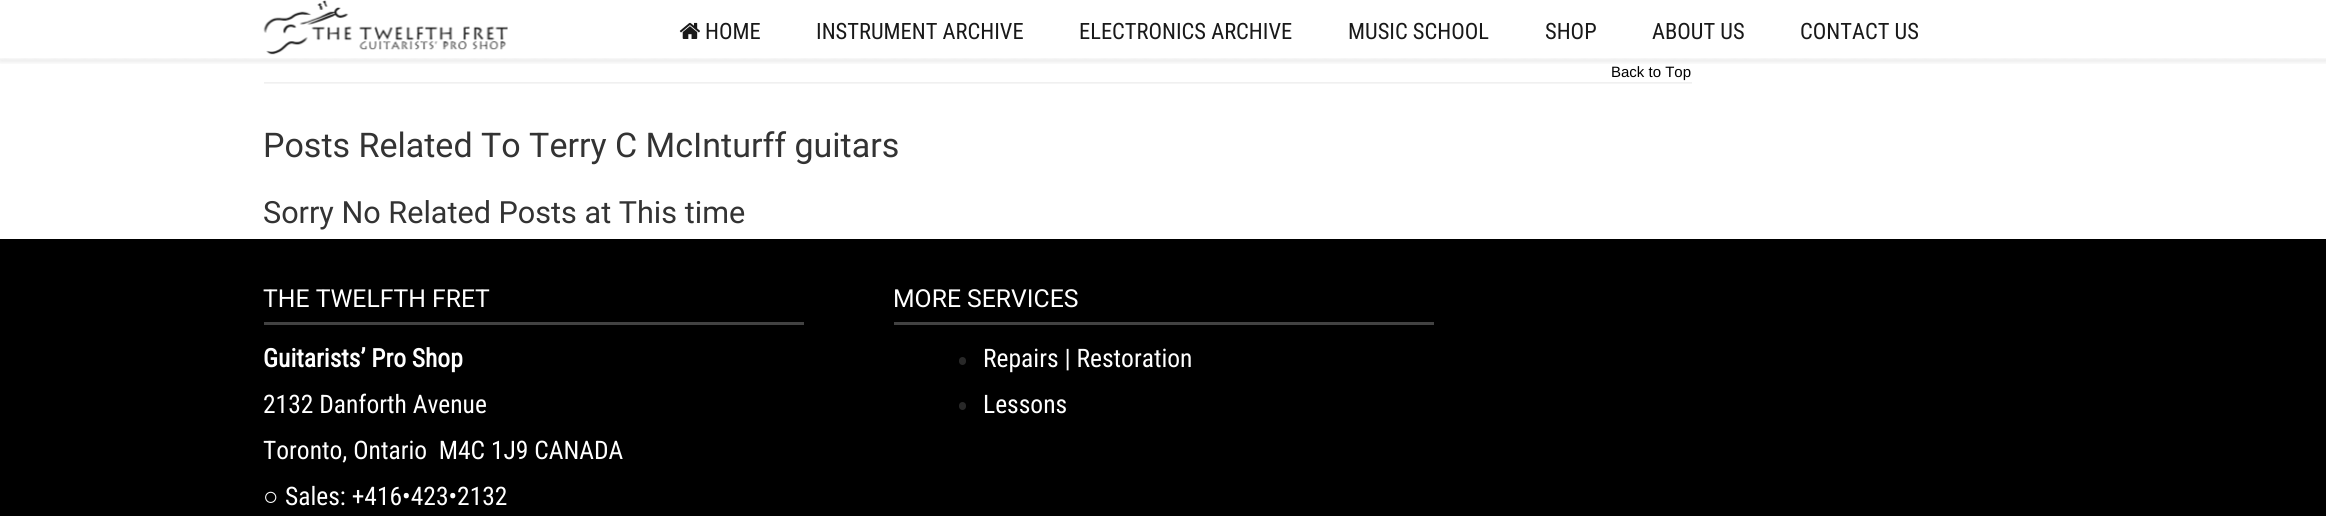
import math
import cairocffi as cairo

surface = cairo.ImageSurface(cairo.FORMAT_RGB24, 2326, 516)
ctx = cairo.Context(surface)
options = cairo.FontOptions()
options.set_hint_metrics(cairo.HINT_METRICS_OFF)
options.set_hint_style(cairo.HINT_STYLE_NONE)
ctx.set_font_options(options)
ctx.set_miter_limit(4)


def rgb(r, g, b):
    ctx.set_source_rgb(r / 255, g / 255, b / 255)


def face(family, size, italic, bold):
    ctx.select_font_face(family, cairo.FONT_SLANT_ITALIC if italic else cairo.FONT_SLANT_NORMAL, cairo.FONT_WEIGHT_BOLD if bold else cairo.FONT_WEIGHT_NORMAL)
    ctx.set_font_size(size)


def label(x, y, s):
    ctx.move_to(x, y)
    ctx.show_text(s)


def rect(x, y, w, h):
    ctx.rectangle(x, y, w, h)
    ctx.fill()


def rrect(x, y, w, h, r):
    ctx.new_sub_path()
    for i, (u, v) in enumerate([(x + w - r, y + h - r), (x + r, y + h - r), (x + r, y + r), (x + w - r, y + r)]):
        ctx.arc(u, v, r, i * math.pi / 2, (i + 1) * math.pi / 2)
    ctx.close_path()


def soft_shadow(x, y, w, h, r, blur, alpha):
    ctx.push_group_with_content(cairo.CONTENT_ALPHA)
    ctx.set_operator(cairo.OPERATOR_SOURCE)
    for i in range(15, -16, -2):
        e = blur * i / 6
        if min(w, h) + 2 * e > 0:
            ctx.set_source_rgba(0, 0, 0, alpha * math.erfc((i - 1) / 8.5) / 2)
            rrect(x - e, y - e, w + 2 * e, h + 2 * e, max(0, min(r + e + blur * .6, min(w, h) / 2 + e)))
            ctx.fill()
    ctx.mask(ctx.pop_group())


def image(path, x, y, w, h):
    ctx.save()
    ctx.set_source_surface(cairo.ImageSurface.create_from_png(path), x, y)
    ctx.rectangle(x, y, w, h)
    ctx.fill()
    ctx.restore()


rgb(255, 255, 255)
ctx.paint()
ctx.save()
ctx.rectangle(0, 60, 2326, 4)
ctx.clip()
rgb(0, 0, 0)
soft_shadow(0, 0, 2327, 60, 0, 4, 0.14)
ctx.restore()
image('image0.png', 263, 0, 245, 55)
image('image1.png', 679, 22, 21, 17)
face('Roboto Condensed', 22.5, 0, 0)
rgb(25, 25, 25)
label(705, 39, 'HOME')
label(816, 39, 'INSTRUMENT ARCHIVE')
label(1079, 39, 'ELECTRONICS ARCHIVE')
label(1348, 39, 'MUSIC SCHOOL')
label(1545, 39, 'SHOP')
label(1652, 39, 'ABOUT US')
label(1800, 39, 'CONTACT US')
image('image2.png', 0, 58, 2326, 2)
image('image3.png', 264, 82, 1428, 2)
face('Liberation Sans', 15, 0, 0)
rgb(0, 0, 0)
label(1611, 77, 'Back to Top')
face('Roboto', 34, 0, 0)
rgb(51, 51, 51)
label(263, 157, 'Posts Related To Terry C McInturff guitars')
face('Roboto', 30.6, 0, 0)
label(263, 223, 'Sorry No Related Posts at This time')
rgb(0, 0, 0)
rect(0, 239, 2326, 277)
rgb(66, 66, 66)
rect(264, 322, 540, 3)
face('Roboto', 24.75, 0, 0)
rgb(255, 255, 255)
label(263, 307, 'THE TWELFTH FRET')
face('Roboto Condensed', 25.5, 0, 1)
label(263, 367, 'Guitarists’ Pro Shop')
face('Roboto Condensed', 25.5, 0, 0)
label(263, 413, '2132 Danforth Avenue')
label(263, 459, 'Toronto, Ontario  M4C 1J9 CANADA')
face('Liberation Serif', 25.5, 0, 0)
label(263, 505, '○')
face('Roboto Condensed', 25.5, 0, 0)
label(285, 505, 'Sales: +416•423•2132')
rgb(66, 66, 66)
rect(894, 322, 540, 3)
face('Roboto', 24.75, 0, 0)
rgb(255, 255, 255)
label(893, 307, 'MORE SERVICES')
rgb(40, 40, 40)
rrect(959, 357, 7, 8, 3.5)
ctx.fill()
face('Roboto Condensed', 25.5, 0, 0)
rgb(255, 255, 255)
label(983, 367, 'Repairs | Restoration')
rgb(40, 40, 40)
rrect(959, 402, 7, 8, 3.5)
ctx.fill()
rgb(255, 255, 255)
label(983, 413, 'Lessons')
surface.write_to_png('render.png')
